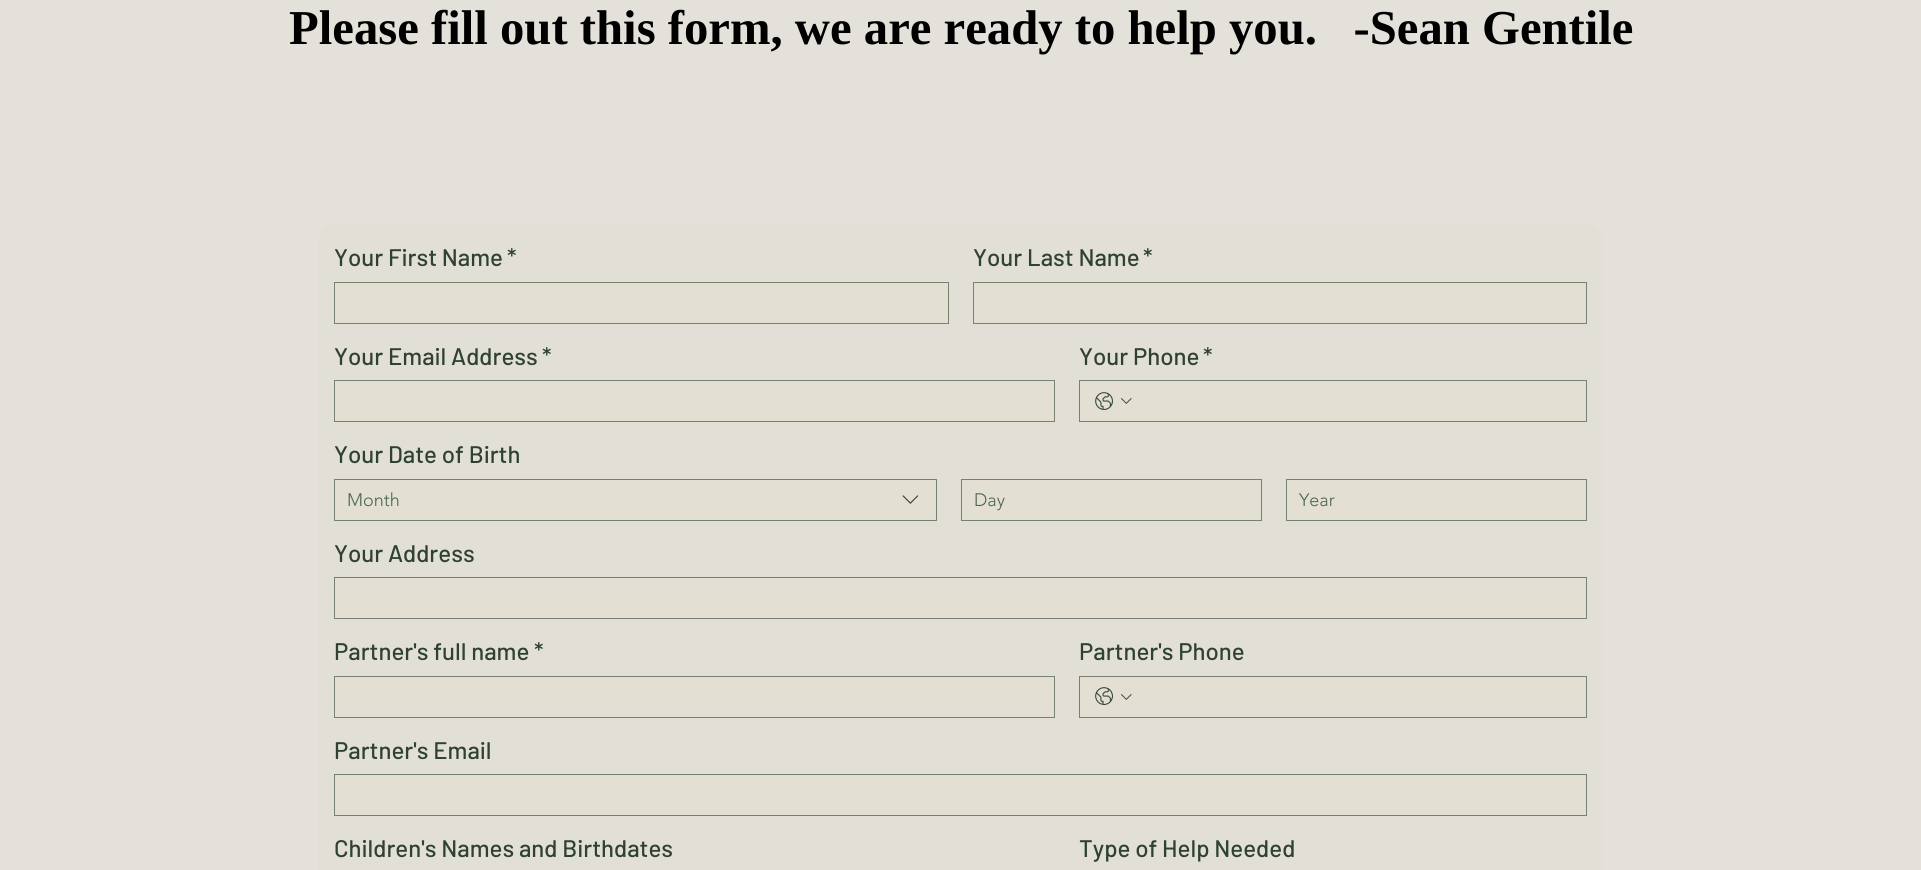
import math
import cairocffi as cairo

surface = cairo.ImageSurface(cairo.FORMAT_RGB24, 1921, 870)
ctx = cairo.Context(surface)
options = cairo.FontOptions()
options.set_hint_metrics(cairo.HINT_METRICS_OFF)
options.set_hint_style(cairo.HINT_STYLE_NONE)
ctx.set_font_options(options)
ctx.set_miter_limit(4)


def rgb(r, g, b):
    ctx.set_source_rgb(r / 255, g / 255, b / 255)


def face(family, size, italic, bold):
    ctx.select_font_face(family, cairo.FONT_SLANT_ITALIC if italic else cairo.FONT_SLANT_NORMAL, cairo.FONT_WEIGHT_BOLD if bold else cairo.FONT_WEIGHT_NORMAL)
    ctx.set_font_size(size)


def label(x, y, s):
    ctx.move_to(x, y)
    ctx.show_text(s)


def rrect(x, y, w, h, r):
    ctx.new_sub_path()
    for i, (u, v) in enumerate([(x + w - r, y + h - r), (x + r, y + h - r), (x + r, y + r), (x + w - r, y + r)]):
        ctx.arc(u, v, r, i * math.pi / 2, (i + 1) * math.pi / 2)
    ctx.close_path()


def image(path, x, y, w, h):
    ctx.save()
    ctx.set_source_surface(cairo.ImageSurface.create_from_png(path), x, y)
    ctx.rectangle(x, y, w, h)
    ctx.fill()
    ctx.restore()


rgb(227, 225, 218)
ctx.paint()
face('Liberation Serif', 48.7, 0, 1)
rgb(0, 0, 0)
label(289, 44, 'Please fill out this form, we are ready to help you.   -Sean Gentile')
rgb(226, 223, 214)
rrect(318, 223, 1285, 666, 19)
ctx.fill()
face('Barlow Medium', 24, 0, 0)
rgb(47, 66, 49)
label(334, 266, 'Your First Name')
label(507, 266, '*')
label(973, 266, 'Your Last Name')
label(1143, 266, '*')
rgb(227, 223, 211)
ctx.rectangle(334.5, 282.5, 614, 41)
ctx.fill_preserve()
rgb(119, 129, 114)
ctx.set_line_width(1)
ctx.stroke()
rgb(227, 223, 211)
ctx.rectangle(973.5, 282.5, 613, 41)
ctx.fill_preserve()
rgb(119, 129, 114)
ctx.stroke()
rgb(47, 66, 49)
label(334, 365, 'Your Email Address')
label(542, 365, '*')
label(1079, 365, 'Your Phone')
label(1203, 365, '*')
rgb(227, 223, 211)
ctx.rectangle(334.5, 380.5, 720, 41)
ctx.fill_preserve()
rgb(119, 129, 114)
ctx.stroke()
rgb(227, 223, 211)
ctx.rectangle(1079.5, 380.5, 507, 41)
ctx.fill_preserve()
rgb(119, 129, 114)
ctx.stroke()
image('image0.png', 1095, 392, 18, 18)
image('image1.png', 1121, 398, 11, 6)
rgb(47, 66, 49)
label(334, 463, 'Your Date of Birth')
rgb(227, 223, 211)
ctx.rectangle(334.5, 479.5, 602, 41)
ctx.fill_preserve()
rgb(119, 129, 114)
ctx.stroke()
face('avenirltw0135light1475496 Light', 18, 0, 0)
rgb(73, 102, 76)
label(347, 506, 'Month')
image('image2.png', 902, 495, 17, 9)
rgb(227, 223, 211)
ctx.rectangle(961.5, 479.5, 300, 41)
ctx.fill_preserve()
rgb(119, 129, 114)
ctx.stroke()
rgb(73, 102, 76)
label(974, 506, 'Day')
rgb(227, 223, 211)
ctx.rectangle(1286.5, 479.5, 300, 41)
ctx.fill_preserve()
rgb(119, 129, 114)
ctx.stroke()
rgb(73, 102, 76)
label(1299, 506, 'Year')
face('Barlow Medium', 24, 0, 0)
rgb(47, 66, 49)
label(334, 562, 'Your Address')
rgb(227, 223, 211)
ctx.rectangle(334.5, 577.5, 1252, 41)
ctx.fill_preserve()
rgb(119, 129, 114)
ctx.stroke()
rgb(47, 66, 49)
label(334, 660, 'Partner\'s full name')
label(534, 660, '*')
label(1079, 660, 'Partner\'s Phone')
rgb(227, 223, 211)
ctx.rectangle(334.5, 676.5, 720, 41)
ctx.fill_preserve()
rgb(119, 129, 114)
ctx.stroke()
rgb(227, 223, 211)
ctx.rectangle(1079.5, 676.5, 507, 41)
ctx.fill_preserve()
rgb(119, 129, 114)
ctx.stroke()
image('image0.png', 1095, 687, 18, 18)
image('image1.png', 1121, 694, 11, 6)
rgb(47, 66, 49)
label(334, 759, 'Partner\'s Email')
rgb(227, 223, 211)
ctx.rectangle(334.5, 774.5, 1252, 41)
ctx.fill_preserve()
rgb(119, 129, 114)
ctx.stroke()
rgb(47, 66, 49)
label(334, 857, 'Children\'s Names and Birthdates')
label(1079, 857, 'Type of Help Needed')
surface.write_to_png('render.png')
